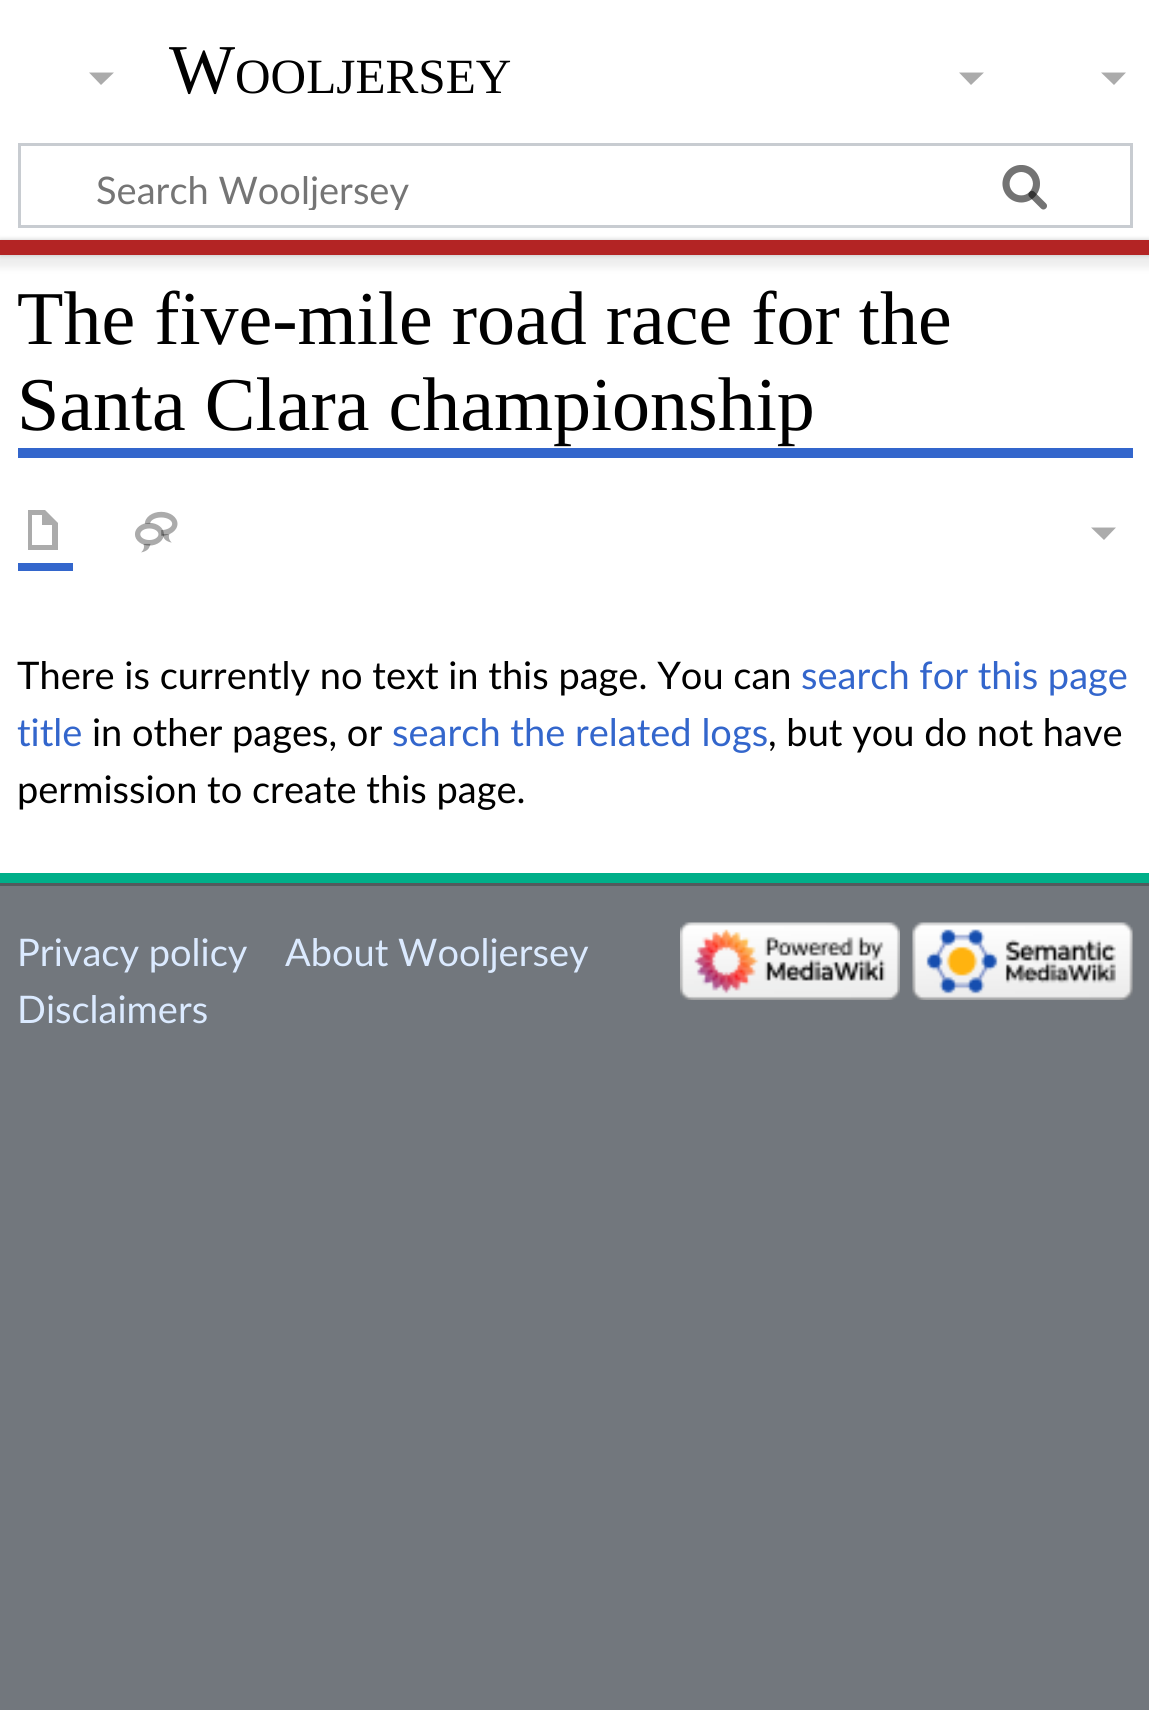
import math
import cairocffi as cairo

surface = cairo.ImageSurface(cairo.FORMAT_RGB24, 1149, 1710)
ctx = cairo.Context(surface)
options = cairo.FontOptions()
options.set_hint_metrics(cairo.HINT_METRICS_OFF)
options.set_hint_style(cairo.HINT_STYLE_NONE)
ctx.set_font_options(options)
ctx.set_miter_limit(4)


def rgb(r, g, b):
    ctx.set_source_rgb(r / 255, g / 255, b / 255)


def face(family, size, italic, bold):
    ctx.select_font_face(family, cairo.FONT_SLANT_ITALIC if italic else cairo.FONT_SLANT_NORMAL, cairo.FONT_WEIGHT_BOLD if bold else cairo.FONT_WEIGHT_NORMAL)
    ctx.set_font_size(size)


def label(x, y, s):
    ctx.move_to(x, y)
    ctx.show_text(s)


def rect(x, y, w, h):
    ctx.rectangle(x, y, w, h)
    ctx.fill()


def rrect(x, y, w, h, r):
    ctx.new_sub_path()
    for i, (u, v) in enumerate([(x + w - r, y + h - r), (x + r, y + h - r), (x + r, y + r), (x + w - r, y + r)]):
        ctx.arc(u, v, r, i * math.pi / 2, (i + 1) * math.pi / 2)
    ctx.close_path()


def soft_shadow(x, y, w, h, r, blur, alpha):
    ctx.push_group_with_content(cairo.CONTENT_ALPHA)
    ctx.set_operator(cairo.OPERATOR_SOURCE)
    for i in range(15, -16, -2):
        e = blur * i / 6
        if min(w, h) + 2 * e > 0:
            ctx.set_source_rgba(0, 0, 0, alpha * math.erfc((i - 1) / 8.5) / 2)
            rrect(x - e, y - e, w + 2 * e, h + 2 * e, max(0, min(r + e + blur * .6, min(w, h) / 2 + e)))
            ctx.fill()
    ctx.mask(ctx.pop_group())


def image(path, x, y, w, h):
    ctx.save()
    ctx.set_source_surface(cairo.ImageSurface.create_from_png(path), x, y)
    ctx.rectangle(x, y, w, h)
    ctx.fill()
    ctx.restore()


rgb(114, 119, 125)
ctx.paint()
rgb(255, 255, 255)
rect(0, 0, 1149, 240)
face('Liberation Serif', 70, 0, 0)
rgb(0, 0, 0)
label(169, 93, 'W')
face('Liberation Serif', 49.25, 0, 0)
label(235, 93, 'OOLJERSEY')
rgb(171, 171, 171)
ctx.new_path()
ctx.move_to(1126, 72.5)
ctx.line_to(1114, 85)
ctx.line_to(1101, 72.5)
ctx.close_path()
ctx.fill()
ctx.rectangle(19.5, 144.5, 1112, 82)
rgb(200, 204, 209)
ctx.set_line_width(3)
ctx.stroke()
image('image0.png', 1002, 165, 45, 45)
ctx.save()
ctx.rectangle(95, 165, 855, 45)
ctx.clip()
face('Lato', 38, 0, 0)
rgb(117, 117, 117)
label(96, 204, 'Search Wooljersey')
ctx.restore()
image('image1.png', 1002, 165, 45, 45)
rgb(255, 255, 255)
rect(0, 255, 1149, 618)
rgb(0, 0, 0)
soft_shadow(0, 240, 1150, 15, 0, 2.5, 0.2)
soft_shadow(-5, 243, 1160, 25, 0, 4, 0.07)
rgb(179, 36, 36)
rect(0, 240, 1149, 15)
rgb(0, 175, 137)
rect(0, 873, 1149, 10)
rgb(171, 171, 171)
ctx.new_path()
ctx.move_to(114, 72.5)
ctx.line_to(101, 85)
ctx.line_to(89, 72.5)
ctx.close_path()
ctx.fill()
ctx.new_path()
ctx.move_to(984, 72.5)
ctx.line_to(971, 85)
ctx.line_to(959, 72.5)
ctx.close_path()
ctx.fill()
rgb(51, 102, 204)
rect(18, 448, 1115, 10)
face('Liberation Serif', 76, 0, 0)
rgb(0, 0, 0)
label(17, 344, 'The five-mile road race for the')
label(17, 430, 'Santa Clara championship')
rgb(51, 102, 204)
rect(18, 563, 55, 8)
rgb(171, 171, 171)
ctx.new_path()
ctx.move_to(28, 510)
ctx.line_to(28, 550)
ctx.line_to(58, 550)
ctx.line_to(58, 523)
ctx.line_to(45, 510)
ctx.close_path()
ctx.move_to(32, 515)
ctx.line_to(42, 515)
ctx.line_to(42, 525)
ctx.line_to(52, 525)
ctx.line_to(52, 545)
ctx.line_to(32, 545)
ctx.close_path()
ctx.fill()
image('image2.png', 135, 511, 43, 42)
ctx.new_path()
ctx.move_to(1116, 527.5)
ctx.line_to(1104, 540)
ctx.line_to(1091, 527.5)
ctx.close_path()
ctx.fill()
face('Lato', 38, 0, 0)
rgb(0, 0, 0)
label(17, 689, 'There is currently no text in this page. You can')
rgb(51, 102, 204)
label(801, 689, 'search for this page')
label(17, 746, 'title')
rgb(0, 0, 0)
label(92, 746, 'in other pages, or')
rgb(51, 102, 204)
label(392, 746, 'search the related logs')
rgb(0, 0, 0)
label(768, 746, ', but you do not have')
label(17, 803, 'permission to create this page.')
rgb(84, 89, 93)
rect(0, 883, 1149, 3)
rgb(219, 234, 255)
label(17, 966, 'Privacy policy')
label(285, 966, 'About Wooljersey')
label(17, 1023, 'Disclaimers')
image('image3.png', 680, 922, 220, 78)
image('image4.png', 912, 922, 221, 78)
surface.write_to_png('render.png')
